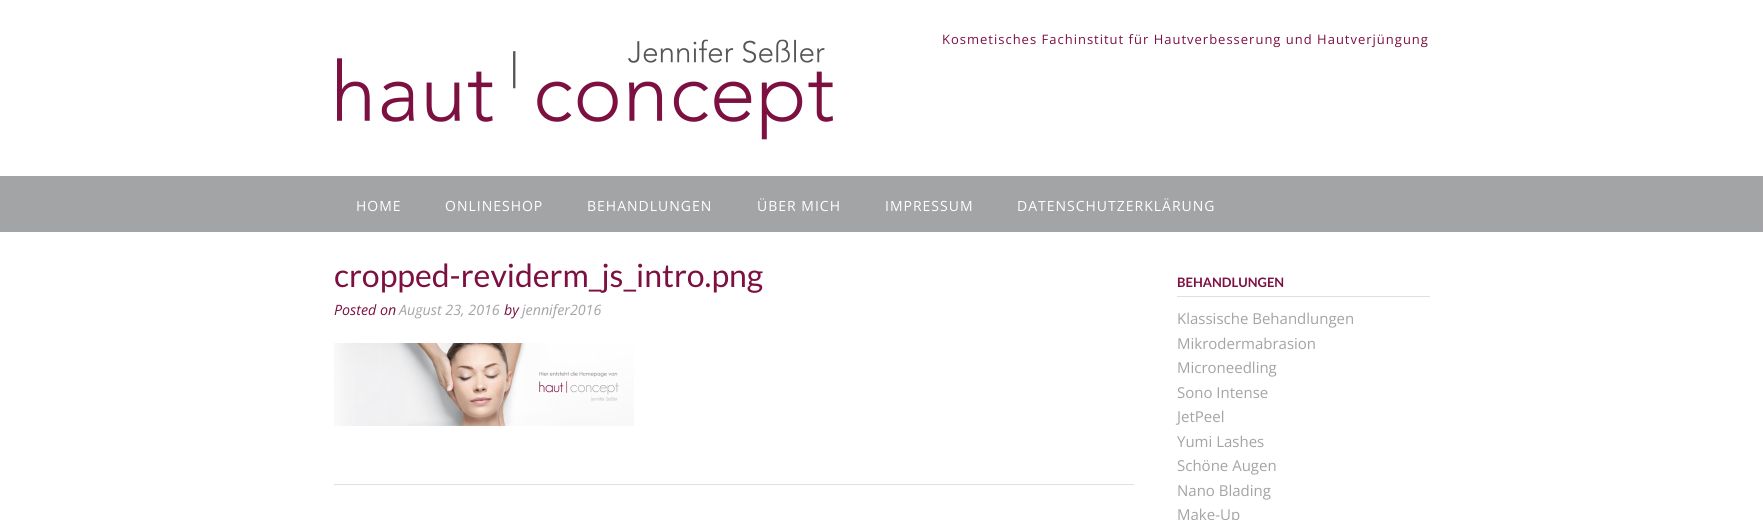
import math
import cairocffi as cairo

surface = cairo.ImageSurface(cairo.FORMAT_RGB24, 1763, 520)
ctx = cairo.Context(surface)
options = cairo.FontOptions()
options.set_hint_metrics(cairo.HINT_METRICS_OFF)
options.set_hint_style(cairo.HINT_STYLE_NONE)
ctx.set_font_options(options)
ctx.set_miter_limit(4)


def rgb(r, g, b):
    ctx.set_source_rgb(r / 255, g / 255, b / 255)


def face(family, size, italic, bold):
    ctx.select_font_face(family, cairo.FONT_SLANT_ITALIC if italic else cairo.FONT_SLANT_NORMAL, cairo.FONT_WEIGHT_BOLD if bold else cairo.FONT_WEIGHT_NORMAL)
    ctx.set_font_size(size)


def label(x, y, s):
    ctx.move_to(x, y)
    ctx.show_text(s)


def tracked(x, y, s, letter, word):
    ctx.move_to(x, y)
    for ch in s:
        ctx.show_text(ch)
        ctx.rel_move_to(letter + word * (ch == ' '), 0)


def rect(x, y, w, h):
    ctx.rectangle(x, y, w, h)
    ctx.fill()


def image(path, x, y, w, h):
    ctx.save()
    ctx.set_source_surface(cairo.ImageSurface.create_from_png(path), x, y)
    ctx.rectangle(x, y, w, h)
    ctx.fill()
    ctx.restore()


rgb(255, 255, 255)
ctx.paint()
image('image0.png', 337, 39, 496, 101)
face('Open Sans', 13, 0, 0)
rgb(125, 16, 65)
tracked(942, 44, 'Kosmetisches Fachinstitut für Hautverbesserung und Hautverjüngung', 1, 0)
rgb(163, 164, 166)
rect(0, 176, 1763, 56)
face('Open Sans', 14, 0, 0)
rgb(255, 255, 255)
tracked(356, 211, 'HOME', 1, 0)
tracked(445, 211, 'ONLINESHOP', 1, 0)
tracked(587, 211, 'BEHANDLUNGEN', 1, 0)
tracked(757, 211, 'ÜBER MICH', 1, 0)
tracked(885, 211, 'IMPRESSUM', 1, 0)
tracked(1017, 211, 'DATENSCHUTZERKLÄRUNG', 1, 0)
rgb(224, 224, 224)
rect(334, 484, 800, 1)
face('Lato', 32, 0, 0)
rgb(125, 16, 65)
label(334, 287, 'cropped-reviderm_js_intro.png')
face('Open Sans', 14.25, 1, 0)
label(334, 315, 'Posted on')
rgb(163, 164, 166)
label(399, 315, 'August 23, 2016')
rgb(125, 16, 65)
label(504, 315, 'by')
rgb(163, 164, 166)
label(522, 315, 'jennifer2016')
image('image1.png', 334, 343, 300, 83)
rgb(224, 224, 224)
rect(1177, 296, 253, 1)
face('Lato', 13, 0, 1)
rgb(125, 16, 65)
label(1177, 287, 'BEHANDLUNGEN')
face('Open Sans', 15, 0, 0)
rgb(163, 164, 166)
label(1177, 324, 'Klassische Behandlungen')
label(1177, 349, 'Mikrodermabrasion')
label(1177, 373, 'Microneedling')
label(1177, 398, 'Sono Intense')
label(1177, 422, 'JetPeel')
label(1177, 447, 'Yumi Lashes')
label(1177, 471, 'Schöne Augen')
label(1177, 496, 'Nano Blading')
label(1177, 520, 'Make-Up')
surface.write_to_png('render.png')
